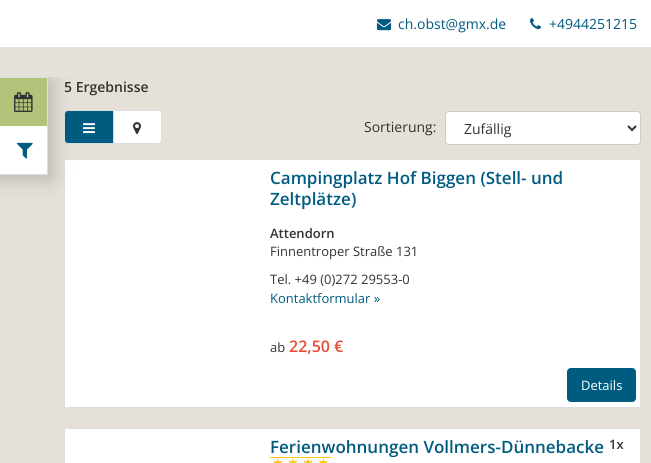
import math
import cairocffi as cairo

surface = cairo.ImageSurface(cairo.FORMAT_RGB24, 651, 463)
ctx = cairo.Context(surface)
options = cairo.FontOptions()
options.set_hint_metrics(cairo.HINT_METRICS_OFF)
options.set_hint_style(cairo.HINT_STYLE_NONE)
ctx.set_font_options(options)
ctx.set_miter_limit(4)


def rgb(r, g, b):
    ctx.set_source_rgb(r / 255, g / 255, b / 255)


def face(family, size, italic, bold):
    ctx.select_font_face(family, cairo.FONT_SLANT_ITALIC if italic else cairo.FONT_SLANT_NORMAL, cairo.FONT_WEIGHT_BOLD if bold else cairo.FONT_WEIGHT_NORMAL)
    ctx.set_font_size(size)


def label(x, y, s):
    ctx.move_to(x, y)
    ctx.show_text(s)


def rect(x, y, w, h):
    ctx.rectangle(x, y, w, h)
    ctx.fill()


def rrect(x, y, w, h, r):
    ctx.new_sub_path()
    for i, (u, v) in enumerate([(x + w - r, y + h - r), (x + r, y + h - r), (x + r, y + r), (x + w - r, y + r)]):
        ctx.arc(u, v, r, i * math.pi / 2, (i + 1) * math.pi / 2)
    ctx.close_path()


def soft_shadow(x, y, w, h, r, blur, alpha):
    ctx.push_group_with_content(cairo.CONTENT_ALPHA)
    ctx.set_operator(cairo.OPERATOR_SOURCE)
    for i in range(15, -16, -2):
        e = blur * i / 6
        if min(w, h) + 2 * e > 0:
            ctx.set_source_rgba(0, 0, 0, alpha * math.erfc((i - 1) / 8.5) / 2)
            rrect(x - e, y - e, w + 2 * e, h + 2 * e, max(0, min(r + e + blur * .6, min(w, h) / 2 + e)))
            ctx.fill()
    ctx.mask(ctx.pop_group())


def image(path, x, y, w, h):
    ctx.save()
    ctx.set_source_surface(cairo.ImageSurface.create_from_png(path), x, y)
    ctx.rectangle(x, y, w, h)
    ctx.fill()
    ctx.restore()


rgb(229, 225, 216)
ctx.paint()
rgb(255, 255, 255)
rect(0, 0, 651, 47)
image('image0.png', 377, 19, 14, 12)
face('Open Sans', 14, 0, 0)
rgb(0, 91, 128)
label(398, 29, 'ch.obst@gmx.de')
image('image1.png', 530, 18, 11, 12)
label(549, 29, '+4944251215')
ctx.new_path()
ctx.move_to(68, 110.5)
ctx.line_to(113.5, 110.5)
ctx.line_to(113.5, 143.5)
ctx.line_to(68, 143.5)
ctx.curve_to(66, 143.5, 64.5, 142, 64.5, 140)
ctx.line_to(64.5, 114)
ctx.curve_to(64.5, 112, 66, 110.5, 68, 110.5)
ctx.close_path()
ctx.fill_preserve()
rgb(221, 221, 221)
ctx.set_line_width(1)
ctx.stroke()
rgb(255, 255, 255)
ctx.rectangle(64.5, 159.5, 576, 248)
ctx.fill_preserve()
rgb(221, 221, 221)
ctx.stroke()
ctx.save()
ctx.rectangle(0, 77, 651, 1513)
ctx.clip()
rgb(0, 0, 0)
soft_shadow(-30, 81, 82, 98, 0, 10, 0.2)
ctx.restore()
rgb(255, 255, 255)
rect(0, 126, 47, 48)
ctx.rectangle(-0.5, 77.5, 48, 97)
rgb(221, 221, 221)
ctx.stroke()
rgb(177, 196, 122)
rect(0, 78, 47, 48)
image('image2.png', 14, 92, 19, 20)
image('image3.png', 17, 142, 16, 17)
face('Open Sans SemiBold', 14, 0, 0)
rgb(51, 51, 51)
label(64, 92, '5 Ergebnisse')
image('image4.png', 83, 123, 12, 11)
rgb(255, 255, 255)
ctx.new_path()
ctx.move_to(113.5, 110.5)
ctx.line_to(158, 110.5)
ctx.curve_to(160, 110.5, 161.5, 112, 161.5, 114)
ctx.line_to(161.5, 140)
ctx.curve_to(161.5, 142, 160, 143.5, 158, 143.5)
ctx.line_to(113.5, 143.5)
ctx.close_path()
ctx.fill_preserve()
rgb(221, 221, 221)
ctx.stroke()
image('image5.png', 133, 122, 8, 12)
face('Open Sans', 14, 0, 0)
rgb(51, 51, 51)
label(364, 132, 'Sortierung:')
rgb(255, 255, 255)
rrect(445.5, 111.5, 195, 33, 3.5)
ctx.fill_preserve()
rgb(204, 204, 204)
ctx.stroke()
ctx.new_path()
ctx.move_to(628, 126)
ctx.line_to(632, 130)
ctx.line_to(636, 126)
rgb(51, 51, 51)
ctx.set_line_width(2)
ctx.stroke()
label(464, 134, 'Zufällig')
face('Open Sans SemiBold', 17, 0, 0)
rgb(0, 91, 128)
label(270, 184, 'Campingplatz Hof Biggen (Stell- und')
label(270, 205, 'Zeltplätze)')
face('Open Sans SemiBold', 13, 0, 0)
rgb(51, 51, 51)
label(270, 238, 'Attendorn')
face('Open Sans', 13, 0, 0)
label(270, 256, 'Finnentroper Straße 131')
label(270, 284, 'Tel. +49 (0)272 29553-0')
rgb(0, 91, 128)
label(270, 303, 'Kontaktformular »')
rgb(51, 51, 51)
label(270, 352, 'ab')
face('Open Sans SemiBold', 16, 0, 0)
rgb(229, 77, 54)
label(289, 352, '22,50 €')
rgb(0, 91, 128)
rrect(567, 368, 69, 34, 4)
ctx.fill()
face('Open Sans', 13, 0, 0)
rgb(255, 255, 255)
label(581, 390, 'Details')
ctx.rectangle(64.5, 428.5, 576, 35)
ctx.fill_preserve()
rgb(221, 221, 221)
ctx.set_line_width(1)
ctx.stroke()
face('Open Sans SemiBold', 17, 0, 0)
rgb(0, 91, 128)
label(270, 453, 'Ferienwohnungen Vollmers-Dünnebacke')
face('Open Sans SemiBold', 13, 0, 0)
rgb(51, 51, 51)
label(609, 449, '1x')
image('image6.png', 270, 457, 61, 6)
surface.write_to_png('render.png')
